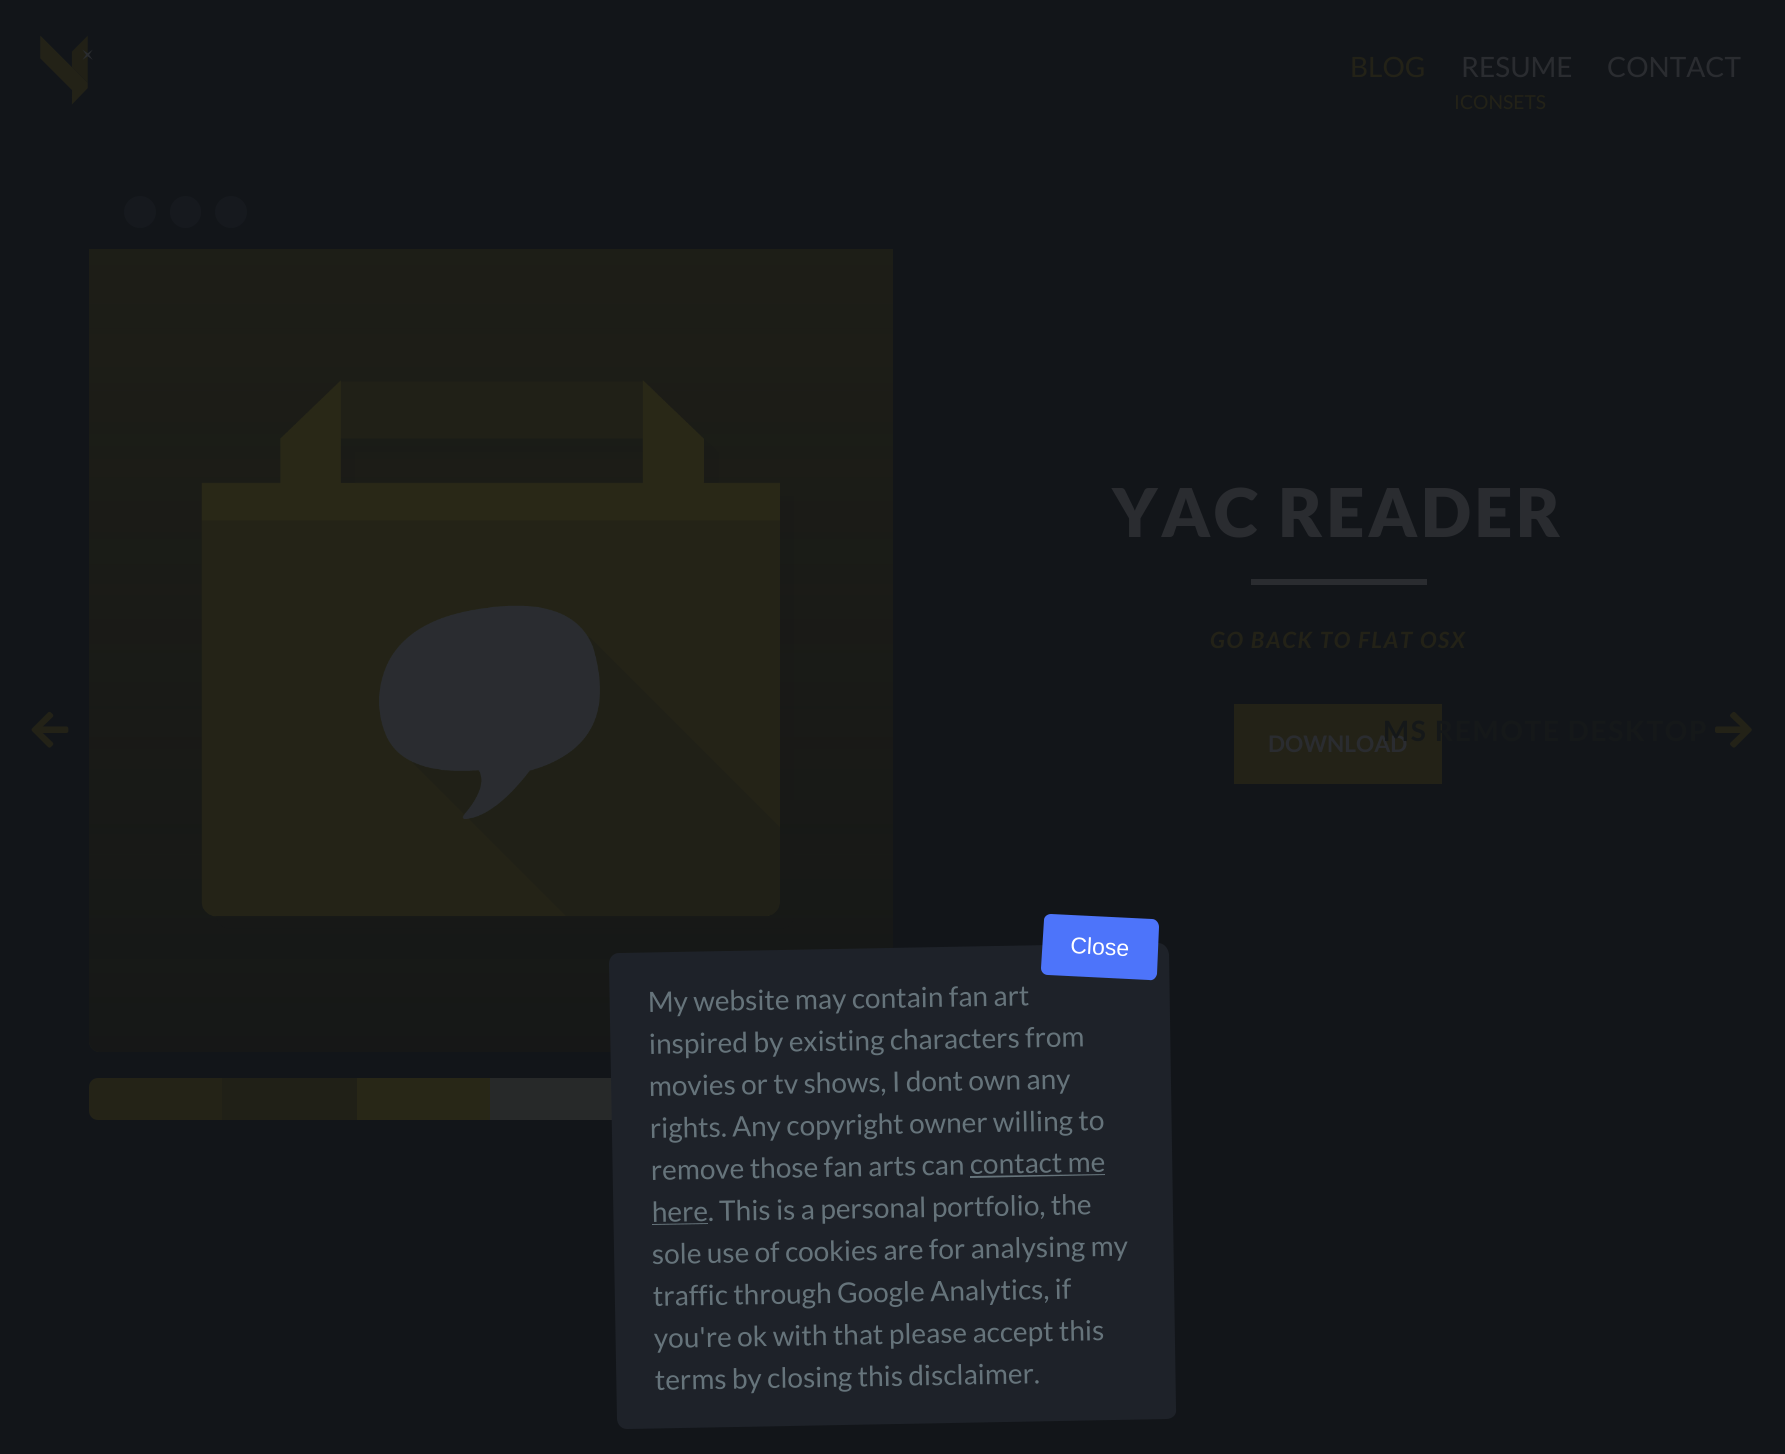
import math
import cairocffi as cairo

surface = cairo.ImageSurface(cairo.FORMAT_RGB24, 1785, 1454)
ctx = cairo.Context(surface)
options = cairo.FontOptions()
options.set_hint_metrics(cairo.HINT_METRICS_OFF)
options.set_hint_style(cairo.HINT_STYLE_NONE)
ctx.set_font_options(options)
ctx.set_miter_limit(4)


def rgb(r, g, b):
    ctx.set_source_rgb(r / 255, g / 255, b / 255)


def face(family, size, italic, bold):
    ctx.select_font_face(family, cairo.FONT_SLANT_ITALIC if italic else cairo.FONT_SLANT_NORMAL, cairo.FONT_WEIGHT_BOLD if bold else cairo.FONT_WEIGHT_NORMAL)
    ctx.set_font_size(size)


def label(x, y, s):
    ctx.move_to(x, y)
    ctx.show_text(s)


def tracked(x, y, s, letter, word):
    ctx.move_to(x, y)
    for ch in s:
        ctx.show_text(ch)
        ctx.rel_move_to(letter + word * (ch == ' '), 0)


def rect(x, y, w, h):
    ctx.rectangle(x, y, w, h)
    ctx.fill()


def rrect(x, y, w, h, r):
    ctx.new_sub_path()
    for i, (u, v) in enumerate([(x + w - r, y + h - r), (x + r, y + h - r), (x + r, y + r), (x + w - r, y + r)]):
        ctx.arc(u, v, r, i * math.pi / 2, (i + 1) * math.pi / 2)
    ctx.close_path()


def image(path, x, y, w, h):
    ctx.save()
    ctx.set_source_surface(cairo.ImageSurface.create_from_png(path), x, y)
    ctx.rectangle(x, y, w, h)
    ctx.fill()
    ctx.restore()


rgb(18, 21, 25)
ctx.paint()
image('image0.png', 40, 35, 53, 70)
face('Lato', 28, 0, 0)
rgb(35, 34, 23)
label(1350, 77, 'BLOG')
rgb(42, 44, 48)
label(1461, 77, 'RESUME')
label(1607, 77, 'CONTACT')
face('Lato', 19.25, 0, 0)
rgb(35, 34, 23)
label(1454, 109, 'ICONSETS')
image('image1.png', 31, 711, 38, 37)
rgb(22, 25, 30)
ctx.arc(140, 212, 16, 0, 2 * math.pi)
ctx.fill()
rrect(170, 196, 31, 32, 15.5)
ctx.fill()
ctx.arc(231, 212, 16, 0, 2 * math.pi)
ctx.fill()
rgb(35, 34, 23)
ctx.new_path()
ctx.move_to(89, 249)
ctx.line_to(893, 249)
ctx.line_to(893, 1041)
ctx.curve_to(893, 1047, 888, 1052, 882, 1052)
ctx.line_to(100, 1052)
ctx.curve_to(94, 1052, 89, 1047, 89, 1041)
ctx.close_path()
ctx.fill()
gradient = cairo.LinearGradient(491, 1052, 491, 249)
gradient.add_color_stop_rgba(0, 0.063, 0.075, 0.09, 0.7)
gradient.add_color_stop_rgba(1, 0.063, 0.075, 0.09, 0.3)
ctx.set_source(gradient)
ctx.new_path()
ctx.move_to(89, 249)
ctx.line_to(893, 249)
ctx.line_to(893, 1041)
ctx.curve_to(893, 1047, 888, 1052, 882, 1052)
ctx.line_to(100, 1052)
ctx.curve_to(94, 1052, 89, 1047, 89, 1041)
ctx.close_path()
ctx.fill()
image('image2.png', 201, 380, 593, 549)
rgb(36, 35, 23)
ctx.new_path()
ctx.move_to(98, 1078)
ctx.line_to(222, 1078)
ctx.line_to(222, 1120)
ctx.line_to(98, 1120)
ctx.curve_to(93, 1120, 89, 1116, 89, 1111)
ctx.line_to(89, 1087)
ctx.curve_to(89, 1082, 93, 1078, 98, 1078)
ctx.close_path()
ctx.fill()
rgb(32, 32, 23)
rect(222, 1078, 135, 42)
rgb(40, 39, 23)
rect(357, 1078, 133, 42)
rgb(39, 41, 41)
rect(490, 1078, 122, 42)
rgb(42, 44, 48)
rect(1251, 579, 176, 6)
face('Lato Black', 67.25, 0, 0)
tracked(1112, 537, 'YAC READER', 3.5, 0)
face('Lato', 22.4, 1, 1)
rgb(35, 34, 23)
tracked(1210, 648, 'GO BACK TO FLAT OSX', 1.75, 0)
rect(1234, 704, 208, 80)
face('Lato', 22.75, 0, 1)
rgb(42, 44, 48)
label(1268, 752, 'DOWNLOAD')
face('Lato', 28, 0, 1)
rgb(21, 24, 25)
tracked(1383, 741, 'MS REMOTE DESKTOP', 1.75, 0)
image('image3.png', 1715, 711, 37, 37)
rgb(30, 34, 41)
ctx.new_path()
ctx.move_to(619, 953)
ctx.line_to(1158, 943)
ctx.curve_to(1164, 943, 1168, 948, 1169, 954)
ctx.line_to(1176, 1409)
ctx.curve_to(1177, 1415, 1172, 1419, 1166, 1419)
ctx.line_to(627, 1429)
ctx.curve_to(621, 1429, 617, 1424, 617, 1418)
ctx.line_to(609, 964)
ctx.curve_to(609, 958, 613, 953, 619, 953)
ctx.close_path()
ctx.fill()
rgb(77, 116, 250)
ctx.new_path()
ctx.move_to(1051, 914)
ctx.line_to(1152, 919)
ctx.curve_to(1156, 919, 1159, 923, 1159, 927)
ctx.line_to(1157, 974)
ctx.curve_to(1156, 978, 1153, 981, 1149, 980)
ctx.line_to(1048, 975)
ctx.curve_to(1044, 975, 1041, 972, 1041, 968)
ctx.line_to(1044, 920)
ctx.curve_to(1044, 917, 1047, 914, 1051, 914)
ctx.close_path()
ctx.fill()
face('Liberation Sans', 23, 0, 0)
rgb(255, 255, 255)
ctx.save()
ctx.translate(1070, 953)
ctx.rotate(3 * math.pi / 180)
label(0, 0, 'Close')
ctx.restore()
face('Lato', 28, 0, 0)
rgb(102, 116, 123)
ctx.save()
ctx.translate(648, 1012)
ctx.rotate(-1 * math.pi / 180)
label(0, 0, 'My website may contain fan art')
ctx.restore()
ctx.save()
ctx.translate(649, 1054)
ctx.rotate(-1 * math.pi / 180)
label(0, 0, 'inspired by existing characters from')
ctx.restore()
ctx.save()
ctx.translate(649, 1096)
ctx.rotate(-1 * math.pi / 180)
label(0, 0, 'movies or tv shows, I dont own any')
ctx.restore()
ctx.save()
ctx.translate(650, 1138)
ctx.rotate(-1 * math.pi / 180)
label(0, 0, 'rights. Any copyright owner willing to')
ctx.restore()
ctx.save()
ctx.translate(651, 1180)
ctx.rotate(-1 * math.pi / 180)
label(0, 0, 'remove those fan arts can')
ctx.restore()
ctx.new_path()
ctx.move_to(970, 1176)
ctx.line_to(1105, 1174)
ctx.line_to(1105, 1175)
ctx.line_to(970, 1178)
ctx.close_path()
ctx.fill()
ctx.save()
ctx.translate(970, 1174)
ctx.rotate(-1 * math.pi / 180)
label(0, 0, 'contact me')
ctx.restore()
ctx.save()
ctx.translate(652, 1222)
ctx.rotate(-1 * math.pi / 180)
label(0, 0, 'here')
ctx.restore()
ctx.new_path()
ctx.move_to(652, 1224)
ctx.line_to(708, 1223)
ctx.line_to(708, 1224)
ctx.line_to(652, 1225)
ctx.close_path()
ctx.fill()
ctx.save()
ctx.translate(708, 1221)
ctx.rotate(-1 * math.pi / 180)
label(0, 0, '. This is a personal portfolio, the')
ctx.restore()
ctx.save()
ctx.translate(652, 1264)
ctx.rotate(-1 * math.pi / 180)
label(0, 0, 'sole use of cookies are for analysing my')
ctx.restore()
ctx.save()
ctx.translate(653, 1306)
ctx.rotate(-1 * math.pi / 180)
label(0, 0, 'traffic through Google Analytics, if')
ctx.restore()
ctx.save()
ctx.translate(654, 1348)
ctx.rotate(-1 * math.pi / 180)
label(0, 0, 'you\'re ok with that please accept this')
ctx.restore()
ctx.save()
ctx.translate(655, 1390)
ctx.rotate(-1 * math.pi / 180)
label(0, 0, 'terms by closing this disclaimer.')
ctx.restore()
surface.write_to_png('render.png')
